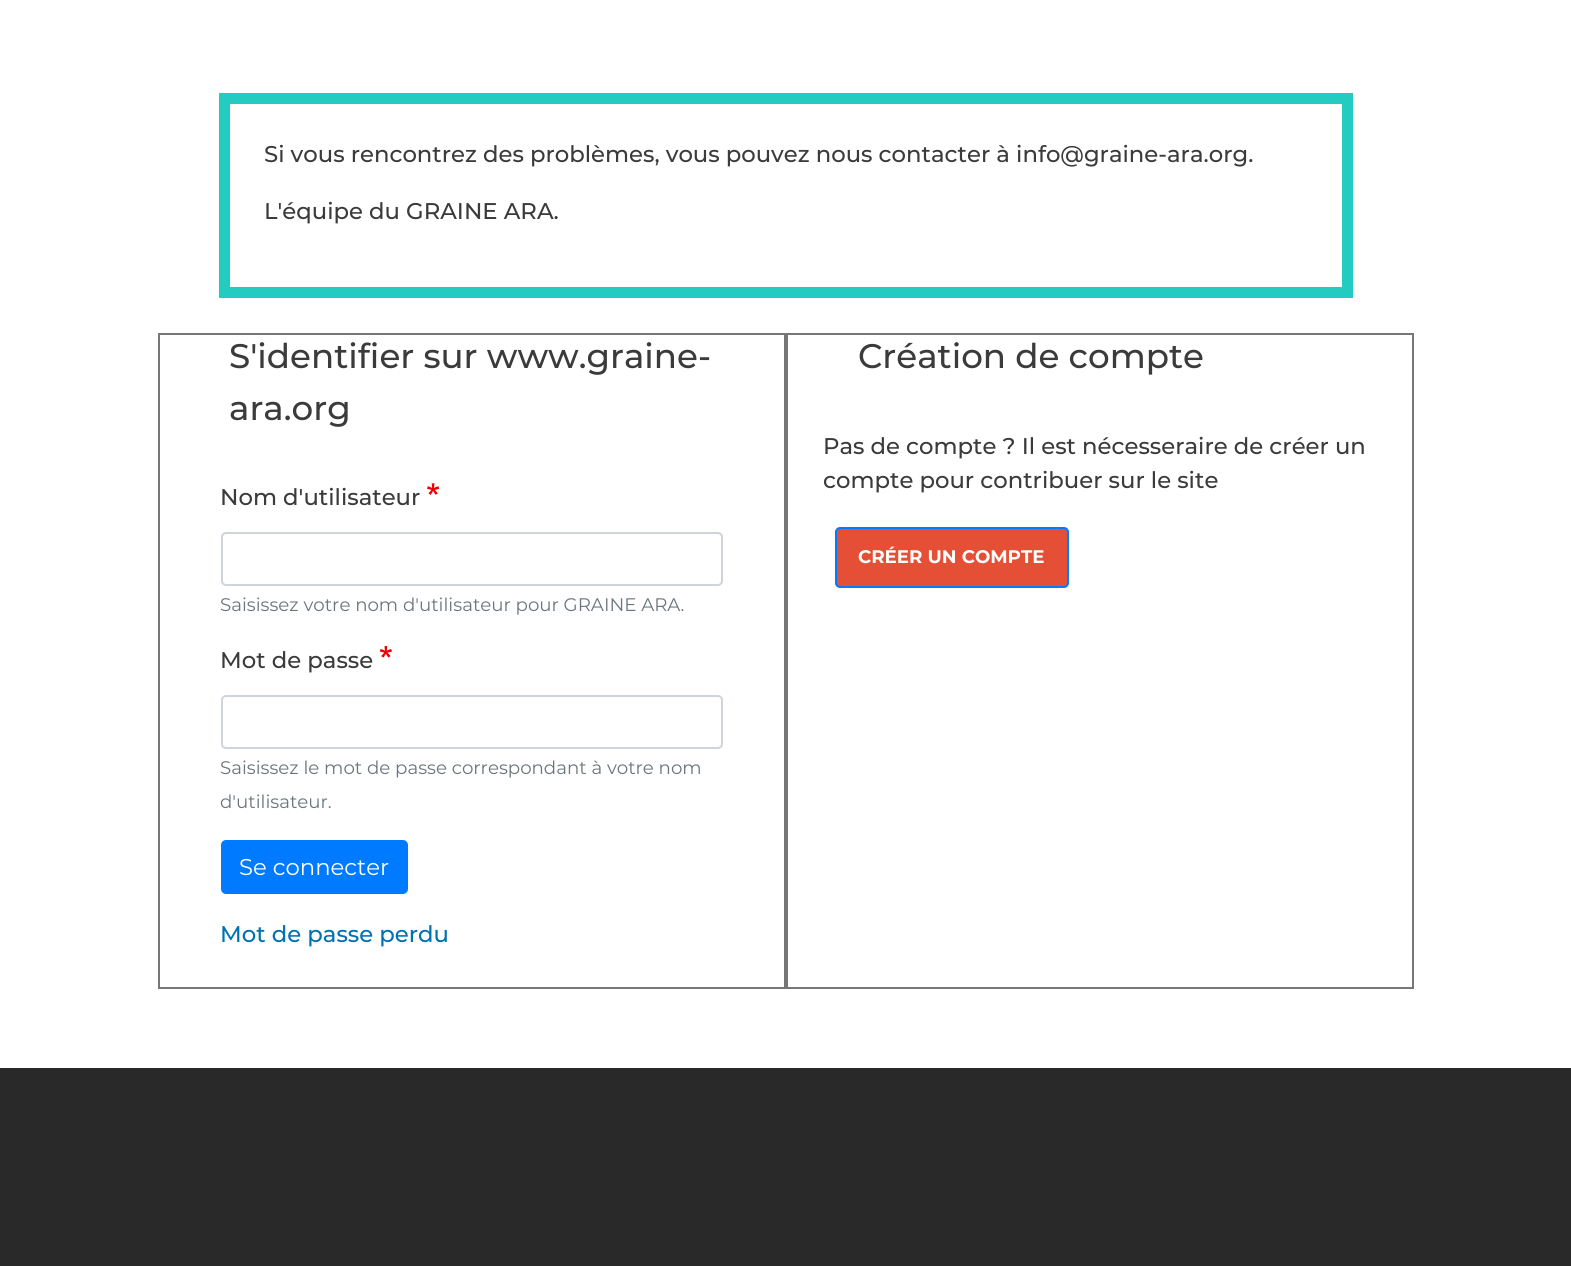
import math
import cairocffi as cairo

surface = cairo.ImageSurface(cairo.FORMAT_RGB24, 1571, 1266)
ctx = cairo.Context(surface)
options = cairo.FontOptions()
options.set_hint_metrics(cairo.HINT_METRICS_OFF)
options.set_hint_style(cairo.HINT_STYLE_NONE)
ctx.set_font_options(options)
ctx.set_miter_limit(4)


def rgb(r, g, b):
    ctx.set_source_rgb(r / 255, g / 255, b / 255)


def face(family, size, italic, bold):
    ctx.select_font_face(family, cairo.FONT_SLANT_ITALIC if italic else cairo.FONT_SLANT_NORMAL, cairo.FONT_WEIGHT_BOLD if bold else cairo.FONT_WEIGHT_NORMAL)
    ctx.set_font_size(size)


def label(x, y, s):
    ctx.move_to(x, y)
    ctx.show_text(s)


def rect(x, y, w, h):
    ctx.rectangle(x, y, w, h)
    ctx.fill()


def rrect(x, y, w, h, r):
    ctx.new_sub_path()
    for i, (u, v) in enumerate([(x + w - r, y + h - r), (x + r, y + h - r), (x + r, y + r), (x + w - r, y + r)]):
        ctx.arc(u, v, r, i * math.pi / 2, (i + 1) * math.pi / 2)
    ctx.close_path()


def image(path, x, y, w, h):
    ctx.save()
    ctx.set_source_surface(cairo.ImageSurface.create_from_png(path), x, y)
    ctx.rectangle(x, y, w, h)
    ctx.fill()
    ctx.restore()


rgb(41, 41, 41)
ctx.paint()
rgb(255, 255, 255)
rect(0, 0, 1571, 1068)
ctx.rectangle(224.5, 98.5, 1123, 194)
rgb(35, 203, 192)
ctx.set_line_width(11)
ctx.stroke()
face('Montserrat Medium', 22.75, 0, 0)
rgb(59, 59, 59)
label(264, 162, 'Si vous rencontrez des problèmes, vous pouvez nous contacter à info@graine-ara.org.')
label(264, 219, 'L\'équipe du GRAINE ARA.')
ctx.rectangle(159, 334, 626, 654)
rgb(119, 119, 119)
ctx.set_line_width(2)
ctx.stroke()
face('Montserrat Medium', 34.1, 0, 0)
rgb(59, 59, 59)
label(229, 368, 'S\'identifier sur www.graine-')
label(229, 420, 'ara.org')
face('Montserrat Medium', 22.75, 0, 0)
label(220, 505, 'Nom d\'utilisateur')
image('image0.png', 427, 483, 12, 12)
rrect(222, 533, 500, 52, 4)
rgb(206, 212, 218)
ctx.stroke()
face('Montserrat', 18.2, 0, 0)
rgb(108, 117, 125)
label(220, 611, 'Saisissez votre nom d\'utilisateur pour GRAINE ARA.')
face('Montserrat Medium', 22.75, 0, 0)
rgb(59, 59, 59)
label(220, 668, 'Mot de passe')
image('image1.png', 380, 646, 12, 12)
rrect(222, 696, 500, 52, 4)
rgb(206, 212, 218)
ctx.stroke()
face('Montserrat', 18.2, 0, 0)
rgb(108, 117, 125)
label(220, 774, 'Saisissez le mot de passe correspondant à votre nom')
label(220, 808, 'd\'utilisateur.')
rgb(0, 123, 255)
rrect(222, 841, 185, 52, 4)
ctx.fill_preserve()
ctx.stroke()
face('Montserrat', 22.75, 0, 0)
rgb(255, 255, 255)
label(239, 875, 'Se connecter')
face('Montserrat Medium', 22.75, 0, 0)
rgb(0, 113, 179)
label(220, 942, 'Mot de passe perdu')
ctx.rectangle(787, 334, 626, 654)
rgb(119, 119, 119)
ctx.stroke()
face('Montserrat Medium', 34.1, 0, 0)
rgb(59, 59, 59)
label(858, 368, 'Création de compte')
face('Montserrat Medium', 22.75, 0, 0)
label(823, 454, 'Pas de compte ? Il est nécesseraire de créer un')
label(823, 488, 'compte pour contribuer sur le site')
rgb(229, 79, 54)
rrect(836, 528, 232, 59, 4)
ctx.fill_preserve()
rgb(0, 123, 255)
ctx.stroke()
face('Montserrat', 18.2, 0, 1)
rgb(255, 255, 255)
label(858, 563, 'CRÉER UN COMPTE')
surface.write_to_png('render.png')
